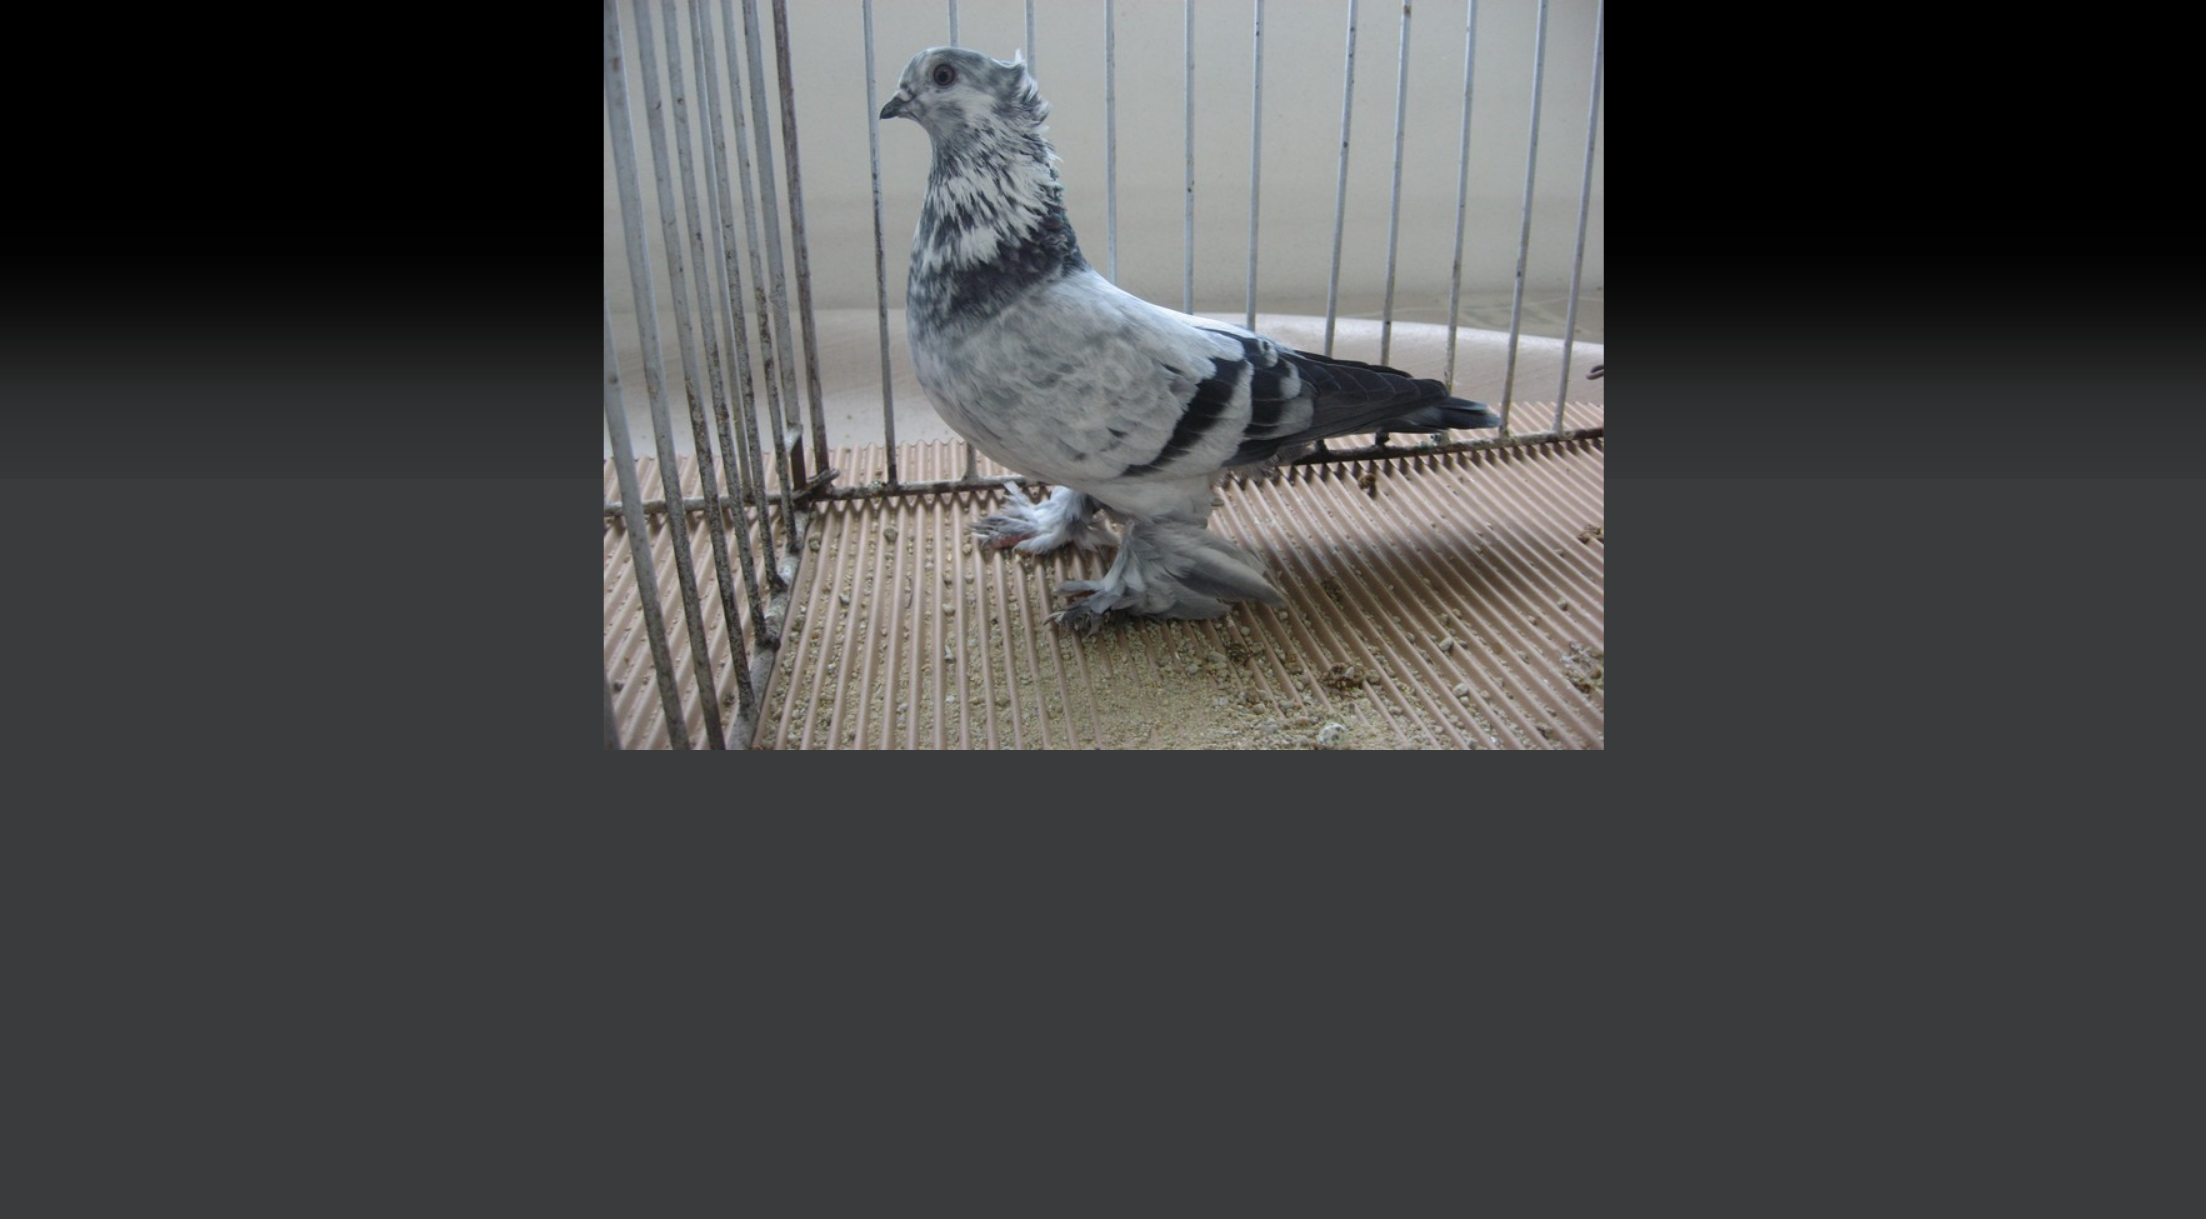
import math
import cairocffi as cairo

surface = cairo.ImageSurface(cairo.FORMAT_RGB24, 2206, 1219)
ctx = cairo.Context(surface)
options = cairo.FontOptions()
options.set_hint_metrics(cairo.HINT_METRICS_OFF)
options.set_hint_style(cairo.HINT_STYLE_NONE)
ctx.set_font_options(options)
ctx.set_miter_limit(4)


def rgb(r, g, b):
    ctx.set_source_rgb(r / 255, g / 255, b / 255)


def image(path, x, y, w, h):
    ctx.save()
    ctx.set_source_surface(cairo.ImageSurface.create_from_png(path), x, y)
    ctx.rectangle(x, y, w, h)
    ctx.fill()
    ctx.restore()


rgb(57, 59, 61)
ctx.paint()
image('image0.png', 0, 0, 2206, 479)
image('image1.png', 603, 0, 1001, 750)
surface.write_to_png('render.png')
